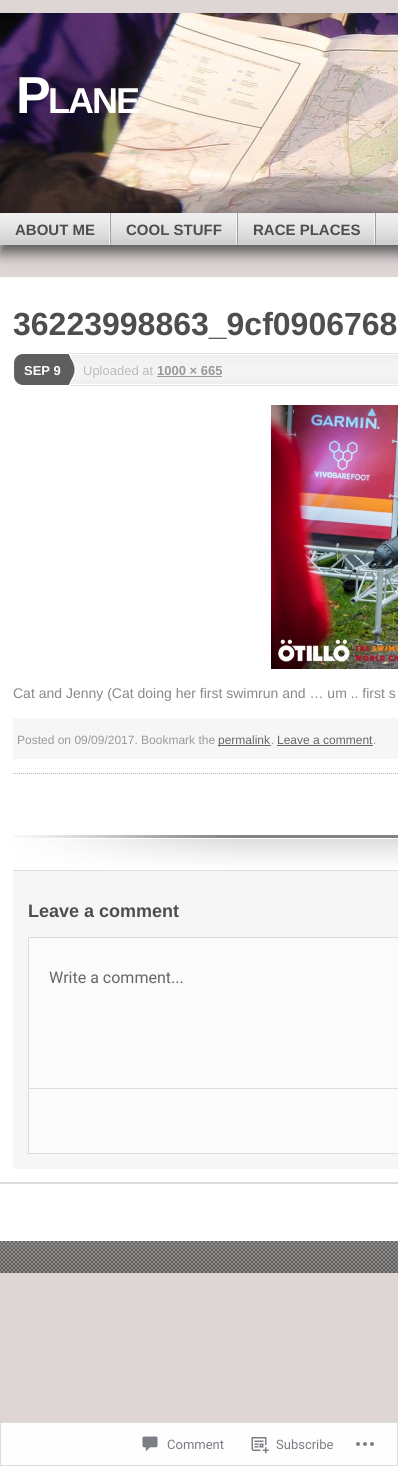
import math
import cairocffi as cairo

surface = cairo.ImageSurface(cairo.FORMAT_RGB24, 398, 1466)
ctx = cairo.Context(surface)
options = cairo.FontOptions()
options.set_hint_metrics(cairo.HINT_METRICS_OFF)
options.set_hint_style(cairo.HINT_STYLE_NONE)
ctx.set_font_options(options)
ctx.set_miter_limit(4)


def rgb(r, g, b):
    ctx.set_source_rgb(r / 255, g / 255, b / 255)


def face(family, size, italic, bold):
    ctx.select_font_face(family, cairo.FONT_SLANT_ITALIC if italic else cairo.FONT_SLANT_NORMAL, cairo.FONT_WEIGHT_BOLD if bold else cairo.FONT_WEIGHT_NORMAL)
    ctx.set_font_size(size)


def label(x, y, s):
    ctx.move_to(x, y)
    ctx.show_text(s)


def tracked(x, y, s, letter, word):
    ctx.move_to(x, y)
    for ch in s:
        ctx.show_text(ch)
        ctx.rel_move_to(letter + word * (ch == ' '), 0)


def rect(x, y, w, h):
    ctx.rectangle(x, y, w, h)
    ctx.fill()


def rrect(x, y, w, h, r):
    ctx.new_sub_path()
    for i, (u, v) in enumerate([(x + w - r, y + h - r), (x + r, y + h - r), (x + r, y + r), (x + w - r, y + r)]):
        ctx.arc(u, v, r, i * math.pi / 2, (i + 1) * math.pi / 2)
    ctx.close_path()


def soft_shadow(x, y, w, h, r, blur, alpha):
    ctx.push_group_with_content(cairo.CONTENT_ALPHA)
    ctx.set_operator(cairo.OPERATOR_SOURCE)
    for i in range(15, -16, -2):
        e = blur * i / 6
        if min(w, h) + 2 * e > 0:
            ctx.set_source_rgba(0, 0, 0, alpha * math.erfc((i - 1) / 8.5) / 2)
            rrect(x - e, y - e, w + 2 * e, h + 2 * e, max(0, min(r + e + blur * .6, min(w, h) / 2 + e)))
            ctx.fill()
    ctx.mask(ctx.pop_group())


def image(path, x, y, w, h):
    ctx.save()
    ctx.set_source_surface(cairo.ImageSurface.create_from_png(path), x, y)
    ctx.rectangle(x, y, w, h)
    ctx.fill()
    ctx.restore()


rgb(222, 213, 213)
ctx.paint()
image('image0.png', 0, 1241, 398, 32)
image('image1.png', 0, 13, 398, 200)
face('Liberation Sans', 52, 0, 1)
rgb(255, 255, 255)
tracked(16, 113, 'P', -2, 0)
face('Liberation Sans', 36, 0, 1)
tracked(48, 113, 'LANE', -2, 0)
rgb(0, 0, 0)
soft_shadow(0, 221, 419, 32, 0, 7, 0.6)
rgb(208, 208, 208)
rect(0, 240, 398, 5)
image('image2.png', 0, 213, 398, 27)
image('image3.png', 109, 213, 2, 32)
face('Liberation Sans', 15, 0, 1)
rgb(78, 78, 78)
label(15, 235, 'ABOUT ME')
image('image3.png', 236, 213, 2, 32)
label(126, 235, 'COOL STUFF')
image('image3.png', 374, 213, 2, 32)
label(253, 235, 'RACE PLACES')
rgb(255, 255, 255)
rect(0, 277, 398, 905)
image('image4.png', 13, 773, 385, 1)
face('Liberation Sans', 32, 0, 1)
rgb(78, 78, 78)
label(13, 335, '36223998863_9cf0906768')
image('image5.png', 14, 354, 11, 31)
image('image6.png', 25, 353, 52, 33)
face('Liberation Sans', 13, 0, 1)
rgb(255, 255, 255)
label(24, 375, 'SEP 9')
image('image7.png', 77, 353, 321, 33)
face('Liberation Sans', 13, 0, 0)
rgb(187, 187, 187)
label(83, 375, 'Uploaded at')
face('Liberation Sans', 13, 0, 1)
rgb(153, 153, 153)
label(157, 375, '1000 × 665')
rect(157, 376, 65, 1)
image('image8.png', 271, 405, 127, 264)
face('Liberation Sans', 14, 0, 0)
rgb(136, 136, 136)
label(13, 698, 'Cat and Jenny (Cat doing her first swimrun and … um .. first s')
rgb(246, 246, 246)
rect(13, 718, 385, 41)
face('Liberation Sans', 12, 0, 0)
rgb(153, 153, 153)
label(17, 744, 'Posted on 09/09/2017. Bookmark the')
rgb(102, 102, 102)
rect(218, 745, 53, 1)
label(218, 744, 'permalink')
rgb(153, 153, 153)
label(271, 744, '.')
rgb(102, 102, 102)
label(277, 744, 'Leave a comment')
rect(277, 745, 96, 1)
rgb(153, 153, 153)
label(373, 744, '.')
image('image9.png', 13, 835, 385, 30)
rgb(246, 246, 246)
rect(13, 871, 385, 298)
rgb(221, 221, 221)
rect(13, 870, 385, 1)
face('Liberation Sans', 18, 0, 1)
rgb(78, 78, 78)
label(28, 917, 'Leave a comment')
rgb(251, 251, 251)
ctx.rectangle(28.5, 937.5, 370, 216)
ctx.fill_preserve()
rgb(220, 220, 222)
ctx.set_line_width(1)
ctx.stroke()
face('Roboto', 16, 0, 0)
rgb(102, 102, 102)
label(49, 983, 'Write a comment...')
rgb(220, 220, 222)
rect(29, 1088, 369, 1)
rgb(255, 255, 255)
rect(0, 1184, 398, 57)
rgb(221, 221, 221)
rect(0, 1182, 398, 2)
rgb(254, 254, 254)
ctx.rectangle(0.5, 1422.5, 397, 43)
ctx.fill_preserve()
rgb(220, 220, 222)
ctx.stroke()
image('image10.png', 142, 1436, 16, 16)
face('Roboto', 13, 0, 0)
rgb(122, 126, 132)
label(167, 1449, 'Comment')
image('image11.png', 251, 1437, 18, 17)
label(276, 1449, 'Subscribe')
image('image12.png', 356, 1442, 18, 4)
surface.write_to_png('render.png')
